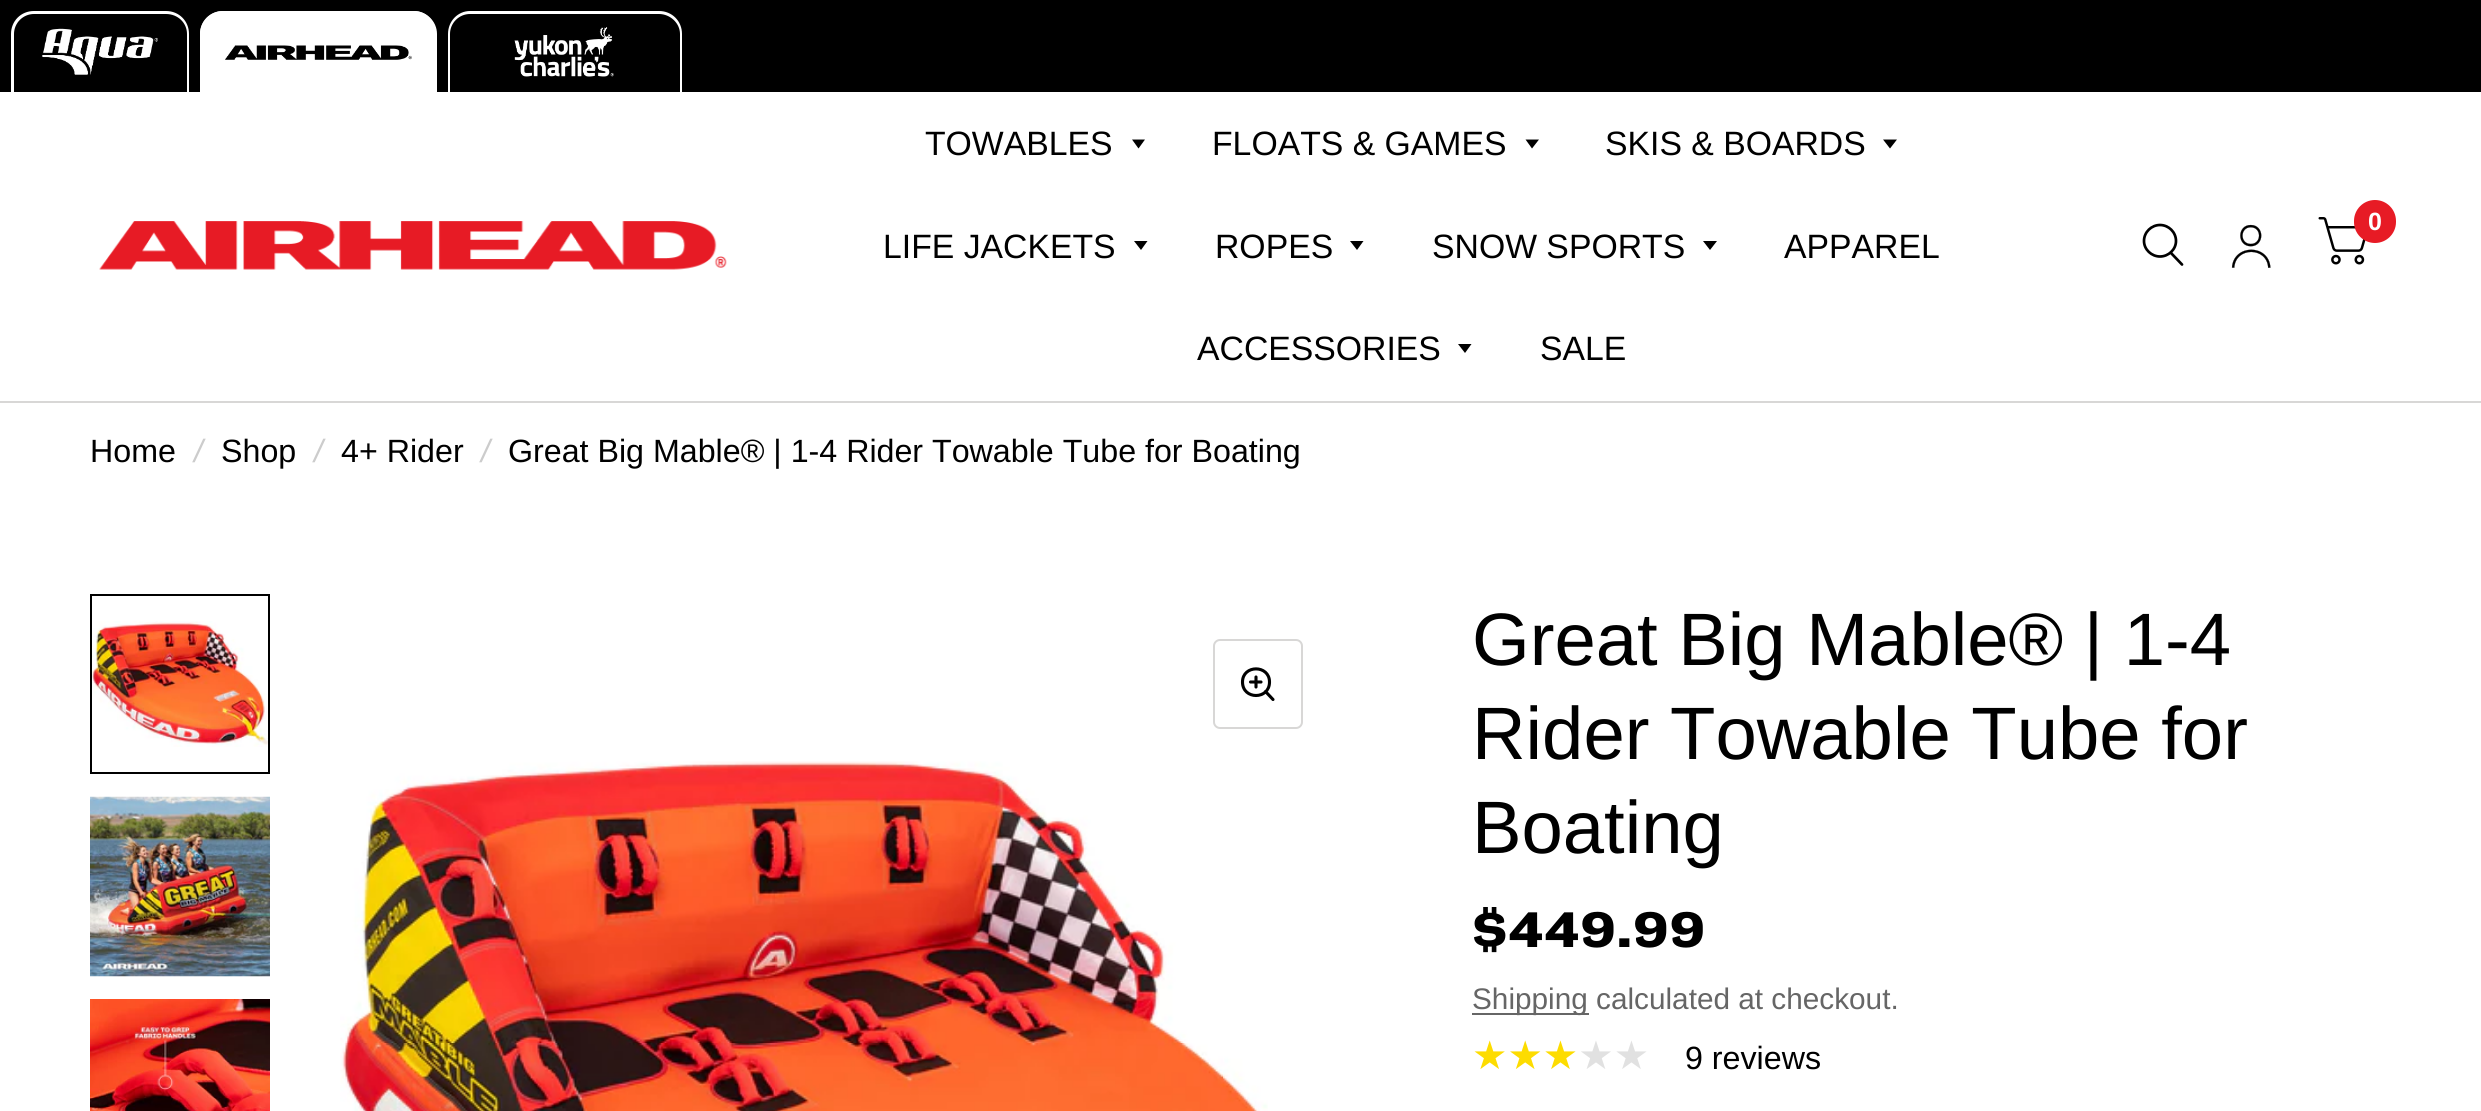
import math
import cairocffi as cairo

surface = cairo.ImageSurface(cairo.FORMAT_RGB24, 2481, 1111)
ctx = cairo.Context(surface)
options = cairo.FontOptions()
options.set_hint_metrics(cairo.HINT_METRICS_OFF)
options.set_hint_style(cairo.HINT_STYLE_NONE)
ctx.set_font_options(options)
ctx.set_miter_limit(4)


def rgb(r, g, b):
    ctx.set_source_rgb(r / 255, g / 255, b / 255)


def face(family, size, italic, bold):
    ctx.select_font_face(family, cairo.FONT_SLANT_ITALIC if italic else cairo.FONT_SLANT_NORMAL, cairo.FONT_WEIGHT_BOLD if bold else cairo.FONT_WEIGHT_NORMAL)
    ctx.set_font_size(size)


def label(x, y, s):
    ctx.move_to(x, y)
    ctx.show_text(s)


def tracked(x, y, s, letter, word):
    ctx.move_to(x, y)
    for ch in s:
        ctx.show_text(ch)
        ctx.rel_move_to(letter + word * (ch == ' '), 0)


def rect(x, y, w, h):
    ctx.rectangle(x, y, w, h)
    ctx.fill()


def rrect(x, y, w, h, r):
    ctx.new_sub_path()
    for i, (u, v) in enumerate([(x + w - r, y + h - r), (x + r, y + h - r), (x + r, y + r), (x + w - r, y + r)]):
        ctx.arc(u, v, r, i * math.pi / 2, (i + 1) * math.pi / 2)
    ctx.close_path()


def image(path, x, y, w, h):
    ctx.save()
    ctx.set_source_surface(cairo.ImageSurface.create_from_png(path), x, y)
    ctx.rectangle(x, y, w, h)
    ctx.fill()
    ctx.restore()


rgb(255, 255, 255)
ctx.paint()
rgb(0, 0, 0)
rect(0, 0, 2481, 92)
rgb(255, 255, 255)
ctx.set_fill_rule(cairo.FILL_RULE_EVEN_ODD)
ctx.new_path()
ctx.move_to(34, 11)
ctx.line_to(166, 11)
ctx.curve_to(179, 11, 189, 21, 189, 34)
ctx.line_to(189, 92)
ctx.line_to(11, 92)
ctx.line_to(11, 34)
ctx.curve_to(11, 21, 21, 11, 34, 11)
ctx.close_path()
ctx.move_to(34, 14)
ctx.line_to(166, 14)
ctx.curve_to(178, 14, 187, 23, 187, 34)
ctx.line_to(187, 92)
ctx.line_to(14, 92)
ctx.line_to(14, 34)
ctx.curve_to(14, 23, 23, 14, 34, 14)
ctx.close_path()
ctx.fill()
image('image0.png', 42, 28, 116, 47)
ctx.new_path()
ctx.move_to(223, 11)
ctx.line_to(414, 11)
ctx.curve_to(426.5, 11, 437, 21.5, 437, 34)
ctx.line_to(437, 92)
ctx.line_to(200, 92)
ctx.line_to(200, 34)
ctx.curve_to(200, 21.5, 210.5, 11, 223, 11)
ctx.close_path()
ctx.fill()
ctx.new_path()
ctx.move_to(223, 11)
ctx.line_to(414, 11)
ctx.curve_to(426, 11, 436, 21, 436, 34)
ctx.line_to(436, 92)
ctx.line_to(200, 92)
ctx.line_to(200, 34)
ctx.curve_to(200, 21, 210, 11, 223, 11)
ctx.close_path()
ctx.move_to(223, 14)
ctx.line_to(414, 14)
ctx.curve_to(425, 14, 434, 23, 434, 34)
ctx.line_to(434, 92)
ctx.line_to(202, 92)
ctx.line_to(202, 34)
ctx.curve_to(202, 23, 212, 14, 223, 14)
ctx.close_path()
ctx.fill()
image('image1.png', 225, 45, 187, 15)
ctx.new_path()
ctx.move_to(470, 11)
ctx.line_to(659, 11)
ctx.curve_to(672, 11, 682, 21, 682, 34)
ctx.line_to(682, 92)
ctx.line_to(448, 92)
ctx.line_to(448, 34)
ctx.curve_to(448, 21, 458, 11, 470, 11)
ctx.close_path()
ctx.move_to(470, 14)
ctx.line_to(659, 14)
ctx.curve_to(670, 14, 680, 23, 680, 34)
ctx.line_to(680, 92)
ctx.line_to(450, 92)
ctx.line_to(450, 34)
ctx.curve_to(450, 23, 459, 14, 470, 14)
ctx.close_path()
ctx.fill()
image('image2.png', 514, 27, 100, 50)
rgb(216, 215, 214)
rect(0, 401, 2481, 2)
image('image3.png', 99, 221, 628, 49)
face('Liberation Sans', 33.75, 0, 0)
rgb(0, 0, 0)
label(925, 155, 'TOWABLES')
ctx.set_fill_rule(cairo.FILL_RULE_WINDING)
ctx.new_path()
ctx.move_to(1132, 139.5)
ctx.line_to(1145, 139.5)
ctx.line_to(1138.5, 148.5)
ctx.close_path()
ctx.fill()
label(1212, 155, 'FLOATS & GAMES')
ctx.new_path()
ctx.move_to(1525.5, 139.5)
ctx.line_to(1539, 139.5)
ctx.line_to(1532, 148.5)
ctx.close_path()
ctx.fill()
label(1605, 155, 'SKIS & BOARDS')
ctx.new_path()
ctx.move_to(1883, 139.5)
ctx.line_to(1897, 139.5)
ctx.line_to(1890, 148.5)
ctx.close_path()
ctx.fill()
label(883, 258, 'LIFE JACKETS')
ctx.new_path()
ctx.move_to(1134, 241)
ctx.line_to(1147.5, 241)
ctx.line_to(1141, 250)
ctx.close_path()
ctx.fill()
label(1215, 258, 'ROPES')
ctx.new_path()
ctx.move_to(1350, 241)
ctx.line_to(1363.5, 241)
ctx.line_to(1357, 250)
ctx.close_path()
ctx.fill()
label(1432, 258, 'SNOW SPORTS')
ctx.new_path()
ctx.move_to(1703, 241)
ctx.line_to(1717, 241)
ctx.line_to(1710, 250)
ctx.close_path()
ctx.fill()
label(1784, 258, 'APPAREL')
label(1197, 360, 'ACCESSORIES')
ctx.new_path()
ctx.move_to(1458, 344)
ctx.line_to(1471.5, 344)
ctx.line_to(1465, 353)
ctx.close_path()
ctx.fill()
label(1540, 360, 'SALE')
ctx.new_path()
ctx.move_to(2171, 253)
ctx.line_to(2182, 264.5)
ctx.move_to(2176, 241)
ctx.curve_to(2176, 249.5, 2168.5, 256.5, 2160, 256.5)
ctx.curve_to(2151.5, 256.5, 2144, 249.5, 2144, 241)
ctx.curve_to(2144, 232, 2151.5, 225, 2160, 225)
ctx.curve_to(2168.5, 225, 2176, 232, 2176, 241)
ctx.close_path()
ctx.set_line_width(2.7)
ctx.set_line_cap(cairo.LINE_CAP_ROUND)
ctx.set_line_join(cairo.LINE_JOIN_ROUND)
ctx.stroke()
image('image4.png', 2231, 224, 40, 44)
image('image5.png', 2318, 217, 48, 48)
rgb(231, 27, 37)
rrect(2354, 200, 42, 43, 21)
ctx.fill()
face('Liberation Sans', 25, 0, 1)
rgb(255, 255, 255)
label(2368, 230, '0')
face('Liberation Sans', 32.2, 0, 0)
rgb(0, 0, 0)
label(90, 462, 'Home')
face('Liberation Sans', 32.2, 1, 0)
rgb(204, 204, 204)
label(194, 462, '/')
face('Liberation Sans', 32.2, 0, 0)
rgb(0, 0, 0)
label(221, 462, 'Shop')
face('Liberation Sans', 32.2, 1, 0)
rgb(204, 204, 204)
label(314, 462, '/')
face('Liberation Sans', 32.2, 0, 0)
rgb(0, 0, 0)
label(341, 462, '4+ Rider')
face('Liberation Sans', 32.2, 1, 0)
rgb(204, 204, 204)
label(481, 462, '/')
face('Liberation Sans', 32.2, 0, 0)
rgb(0, 0, 0)
label(508, 462, 'Great Big Mable® | 1-4 Rider Towable Tube for Boating')
image('image6.png', 92, 621, 176, 126)
ctx.rectangle(91, 595, 178, 178)
ctx.set_line_width(2)
ctx.set_line_cap(cairo.LINE_CAP_BUTT)
ctx.set_line_join(cairo.LINE_JOIN_MITER)
ctx.stroke()
image('image7.png', 90, 796, 180, 181)
image('image8.png', 90, 999, 180, 112)
rrect(1214, 640, 88, 88, 6)
rgb(216, 215, 214)
ctx.stroke()
ctx.new_path()
ctx.move_to(1250.5, 682)
ctx.line_to(1261, 682)
ctx.move_to(1256, 677)
ctx.line_to(1256, 687)
ctx.move_to(1265.5, 691.5)
ctx.line_to(1273, 699.5)
ctx.move_to(1269.5, 682)
ctx.curve_to(1269.5, 700, 1242.5, 700, 1242.5, 682)
ctx.curve_to(1242.5, 664.5, 1269.5, 664.5, 1269.5, 682)
ctx.close_path()
rgb(0, 0, 0)
ctx.set_line_width(3.1)
ctx.set_line_cap(cairo.LINE_CAP_ROUND)
ctx.set_line_join(cairo.LINE_JOIN_ROUND)
ctx.stroke()
image('image9.png', 340, 761, 928, 350)
face('Liberation Sans', 74.25, 0, 0)
label(1472, 665, 'Great Big Mable® | 1-4')
label(1472, 759, 'Rider Towable Tube for')
label(1472, 853, 'Boating')
face('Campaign', 49.5, 0, 1)
tracked(1472, 947, '$449.99', 1, 0)
rgb(102, 102, 102)
rect(1472, 1013, 117, 2)
face('Liberation Sans', 29.75, 0, 0)
label(1472, 1009, 'Shipping calculated at checkout.')
face('DejaVu Sans', 39.5, 0, 0)
gradient = cairo.LinearGradient(1472, 1055, 1649, 1055)
gradient.add_color_stop_rgba(0.6, 0.992, 0.863, 0, 1)
gradient.add_color_stop_rgba(0.6, 0.882, 0.882, 0.882, 1)
ctx.set_source(gradient)
label(1472, 1069, '★★★★★')
face('Liberation Sans', 32.2, 0, 0)
rgb(0, 0, 0)
label(1685, 1069, '9 reviews')
surface.write_to_png('render.png')
